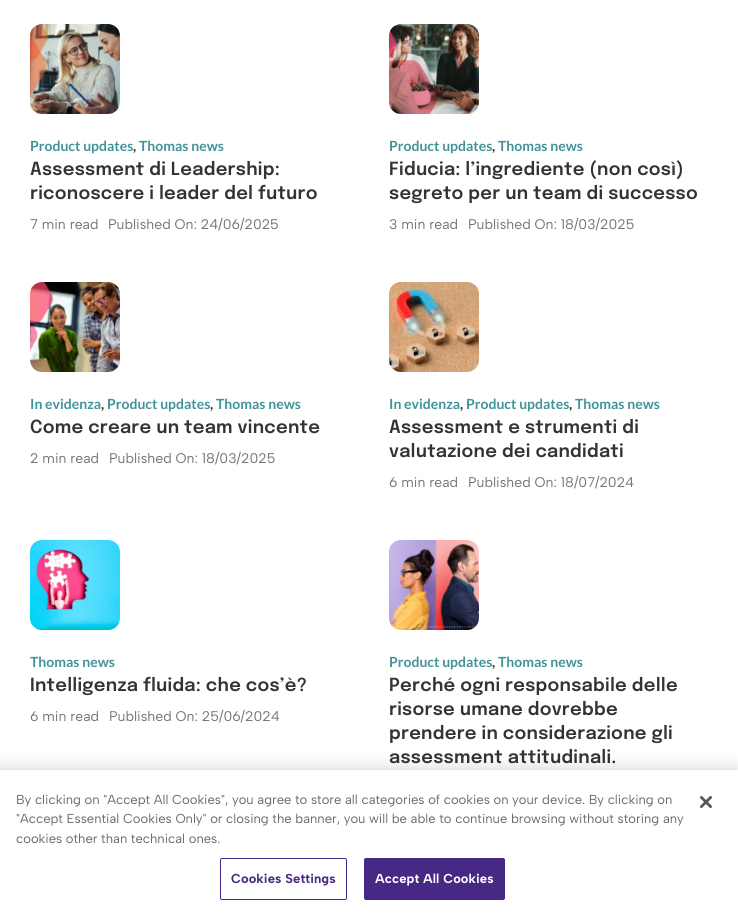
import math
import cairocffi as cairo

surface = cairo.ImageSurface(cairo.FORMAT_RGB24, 738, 916)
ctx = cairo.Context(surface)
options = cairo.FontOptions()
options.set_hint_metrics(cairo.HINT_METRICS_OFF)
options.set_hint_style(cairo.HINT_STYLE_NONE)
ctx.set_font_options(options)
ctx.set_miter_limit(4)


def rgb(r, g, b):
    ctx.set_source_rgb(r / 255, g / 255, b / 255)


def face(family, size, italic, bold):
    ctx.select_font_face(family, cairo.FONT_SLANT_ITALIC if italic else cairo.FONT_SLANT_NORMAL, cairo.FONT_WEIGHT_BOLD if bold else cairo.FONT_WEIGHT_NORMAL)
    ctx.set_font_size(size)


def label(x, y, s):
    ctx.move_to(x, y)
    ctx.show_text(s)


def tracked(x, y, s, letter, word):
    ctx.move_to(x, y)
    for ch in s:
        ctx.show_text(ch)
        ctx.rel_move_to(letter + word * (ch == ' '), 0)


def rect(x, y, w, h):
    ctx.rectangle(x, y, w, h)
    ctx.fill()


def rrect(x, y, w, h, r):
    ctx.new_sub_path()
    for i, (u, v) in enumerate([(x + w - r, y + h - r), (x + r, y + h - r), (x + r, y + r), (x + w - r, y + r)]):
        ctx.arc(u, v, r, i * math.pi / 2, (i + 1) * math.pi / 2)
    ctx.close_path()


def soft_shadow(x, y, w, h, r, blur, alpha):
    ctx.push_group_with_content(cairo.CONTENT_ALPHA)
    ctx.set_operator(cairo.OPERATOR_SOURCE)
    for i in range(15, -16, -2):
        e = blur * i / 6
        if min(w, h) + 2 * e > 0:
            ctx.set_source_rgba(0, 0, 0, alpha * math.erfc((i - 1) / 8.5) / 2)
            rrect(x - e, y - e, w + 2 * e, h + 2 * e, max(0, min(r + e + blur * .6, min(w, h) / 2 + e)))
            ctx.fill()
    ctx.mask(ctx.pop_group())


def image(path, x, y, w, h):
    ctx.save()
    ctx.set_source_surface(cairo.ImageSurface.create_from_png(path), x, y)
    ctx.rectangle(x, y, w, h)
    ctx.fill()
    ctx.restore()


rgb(255, 255, 255)
ctx.paint()
image('image0.png', 30, 24, 90, 90)
face('Lato', 14, 0, 1)
rgb(65, 147, 151)
label(30, 151, 'Product updates')
rgb(51, 51, 51)
label(133, 151, ',')
rgb(65, 147, 151)
label(139, 151, 'Thomas news')
face('Epilogue SemiBold', 18, 0, 0)
rgb(51, 51, 51)
tracked(30, 175, 'Assessment di Leadership:', 0.25, 0)
tracked(30, 199, 'riconoscere i leader del futuro', 0.25, 0)
face('Albert Sans', 14, 0, 0)
rgb(116, 115, 118)
label(30, 229, '7 min read')
label(108, 229, 'Published On: 24/06/2025')
image('image1.png', 389, 24, 90, 90)
face('Lato', 14, 0, 1)
rgb(65, 147, 151)
label(389, 151, 'Product updates')
rgb(51, 51, 51)
label(492, 151, ',')
rgb(65, 147, 151)
label(498, 151, 'Thomas news')
face('Epilogue SemiBold', 18, 0, 0)
rgb(51, 51, 51)
tracked(389, 175, 'Fiducia: l’ingrediente (non così)', 0.25, 0)
tracked(389, 199, 'segreto per un team di successo', 0.25, 0)
face('Albert Sans', 14, 0, 0)
rgb(116, 115, 118)
label(389, 229, '3 min read')
label(468, 229, 'Published On: 18/03/2025')
image('image2.png', 30, 282, 90, 90)
face('Lato', 14, 0, 1)
rgb(65, 147, 151)
label(30, 409, 'In evidenza')
rgb(51, 51, 51)
label(101, 409, ',')
rgb(65, 147, 151)
label(107, 409, 'Product updates')
rgb(51, 51, 51)
label(210, 409, ',')
rgb(65, 147, 151)
label(216, 409, 'Thomas news')
face('Epilogue SemiBold', 18, 0, 0)
rgb(51, 51, 51)
tracked(30, 433, 'Come creare un team vincente', 0.25, 0)
face('Albert Sans', 14, 0, 0)
rgb(116, 115, 118)
label(30, 463, '2 min read')
label(109, 463, 'Published On: 18/03/2025')
image('image3.png', 389, 282, 90, 90)
face('Lato', 14, 0, 1)
rgb(65, 147, 151)
label(389, 409, 'In evidenza')
rgb(51, 51, 51)
label(460, 409, ',')
rgb(65, 147, 151)
label(466, 409, 'Product updates')
rgb(51, 51, 51)
label(569, 409, ',')
rgb(65, 147, 151)
label(575, 409, 'Thomas news')
face('Epilogue SemiBold', 18, 0, 0)
rgb(51, 51, 51)
tracked(389, 433, 'Assessment e strumenti di', 0.25, 0)
tracked(389, 457, 'valutazione dei candidati', 0.25, 0)
face('Albert Sans', 14, 0, 0)
rgb(116, 115, 118)
label(389, 487, '6 min read')
label(468, 487, 'Published On: 18/07/2024')
image('image4.png', 30, 540, 90, 90)
face('Lato', 14, 0, 1)
rgb(65, 147, 151)
label(30, 667, 'Thomas news')
face('Epilogue SemiBold', 18, 0, 0)
rgb(51, 51, 51)
tracked(30, 691, 'Intelligenza fluida: che cos’è?', 0.25, 0)
face('Albert Sans', 14, 0, 0)
rgb(116, 115, 118)
label(30, 721, '6 min read')
label(109, 721, 'Published On: 25/06/2024')
image('image5.png', 389, 540, 90, 90)
face('Lato', 14, 0, 1)
rgb(65, 147, 151)
label(389, 667, 'Product updates')
rgb(51, 51, 51)
label(492, 667, ',')
rgb(65, 147, 151)
label(498, 667, 'Thomas news')
face('Epilogue SemiBold', 18, 0, 0)
rgb(51, 51, 51)
tracked(389, 691, 'Perché ogni responsabile delle', 0.25, 0)
tracked(389, 715, 'risorse umane dovrebbe', 0.25, 0)
tracked(389, 739, 'prendere in considerazione gli', 0.25, 0)
tracked(389, 763, 'assessment attitudinali.', 0.25, 0)
rgb(0, 0, 0)
soft_shadow(0, 770, 738, 146, 0, 9, 0.2)
rgb(255, 255, 255)
rect(0, 770, 738, 146)
face('Albert Sans', 13, 0, 0)
rgb(105, 105, 105)
label(16, 804, 'By clicking on "Accept All Cookies", you agree to store all categories of cookies on your device. By clicking on')
label(16, 823, '"Accept Essential Cookies Only" or closing the banner, you will be able to continue browsing without storing any')
label(16, 843, 'cookies other than technical ones.')
rrect(220.5, 858.5, 126, 41, 1.5)
rgb(71, 40, 132)
ctx.set_line_width(1)
ctx.stroke()
face('Albert Sans', 13, 0, 1)
tracked(231, 883, 'Cookies Settings', 0.1, 0)
rrect(364.5, 858.5, 140, 41, 1.5)
ctx.fill_preserve()
ctx.stroke()
rgb(255, 255, 255)
tracked(375, 883, 'Accept All Cookies', 0.1, 0)
image('image6.png', 700, 796, 12, 12)
surface.write_to_png('render.png')
